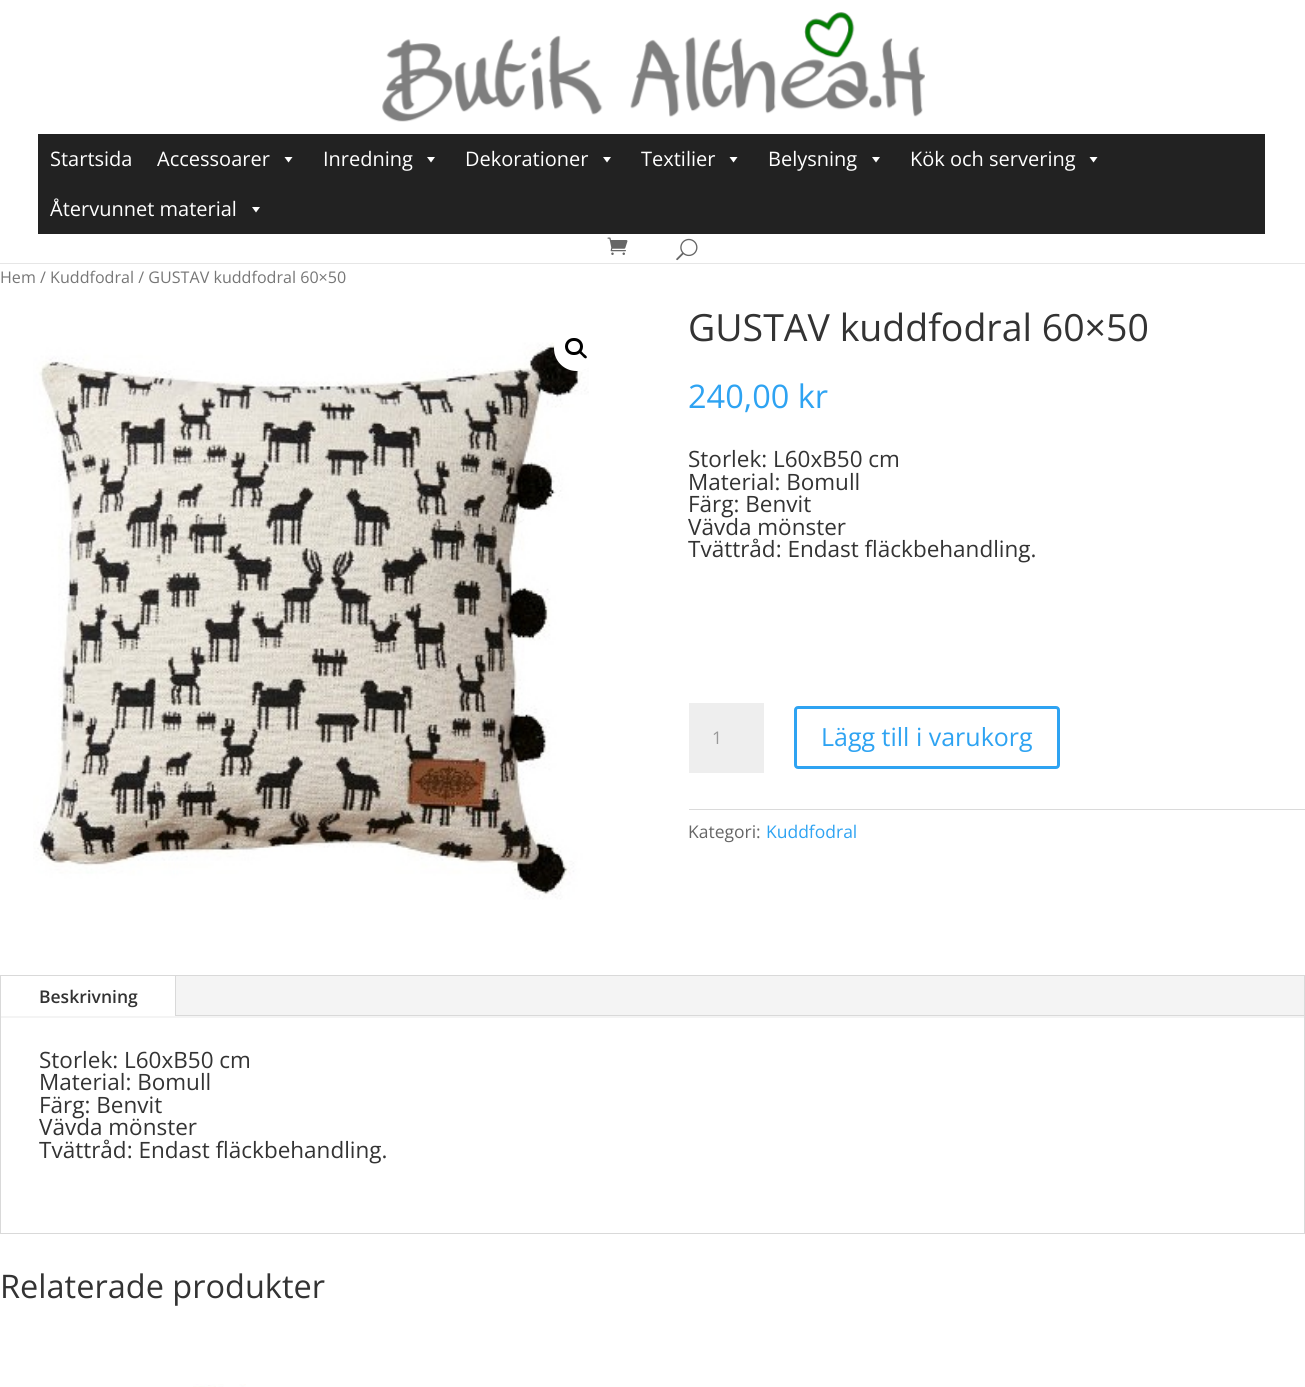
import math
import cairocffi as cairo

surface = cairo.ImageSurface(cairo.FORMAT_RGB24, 1305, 1387)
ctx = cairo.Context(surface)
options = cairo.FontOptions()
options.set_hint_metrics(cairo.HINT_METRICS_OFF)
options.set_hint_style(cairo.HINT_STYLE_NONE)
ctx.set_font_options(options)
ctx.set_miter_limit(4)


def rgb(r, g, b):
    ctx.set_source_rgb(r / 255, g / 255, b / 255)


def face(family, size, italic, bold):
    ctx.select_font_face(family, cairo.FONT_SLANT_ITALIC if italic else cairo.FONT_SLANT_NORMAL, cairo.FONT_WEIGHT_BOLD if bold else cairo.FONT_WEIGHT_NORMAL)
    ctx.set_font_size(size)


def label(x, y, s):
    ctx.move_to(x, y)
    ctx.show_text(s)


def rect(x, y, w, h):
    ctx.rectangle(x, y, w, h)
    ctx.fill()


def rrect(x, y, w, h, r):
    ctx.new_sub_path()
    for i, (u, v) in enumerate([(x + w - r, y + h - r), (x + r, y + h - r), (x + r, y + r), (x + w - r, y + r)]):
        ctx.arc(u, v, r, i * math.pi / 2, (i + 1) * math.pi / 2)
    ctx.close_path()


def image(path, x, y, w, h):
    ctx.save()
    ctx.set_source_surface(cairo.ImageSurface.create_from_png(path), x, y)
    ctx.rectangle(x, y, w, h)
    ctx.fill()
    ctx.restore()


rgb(255, 255, 255)
ctx.paint()
rgb(230, 230, 230)
rect(0, 263, 1305, 1)
image('image0.png', 382, 12, 543, 110)
rgb(34, 34, 34)
rect(38, 134, 1227, 100)
face('Open Sans', 20, 0, 0)
rgb(255, 255, 255)
label(50, 166, 'Startsida')
label(157, 166, 'Accessoarer')
ctx.new_path()
ctx.move_to(292.5, 157)
ctx.line_to(288.5, 162.5)
ctx.line_to(284.5, 157)
ctx.close_path()
ctx.fill()
label(323, 166, 'Inredning')
ctx.new_path()
ctx.move_to(435, 157)
ctx.line_to(431, 162.5)
ctx.line_to(427, 157)
ctx.close_path()
ctx.fill()
label(465, 166, 'Dekorationer')
ctx.new_path()
ctx.move_to(611, 157)
ctx.line_to(607, 162.5)
ctx.line_to(603, 157)
ctx.close_path()
ctx.fill()
label(641, 166, 'Textilier')
ctx.new_path()
ctx.move_to(737.5, 157)
ctx.line_to(733.5, 162.5)
ctx.line_to(729.5, 157)
ctx.close_path()
ctx.fill()
label(768, 166, 'Belysning')
ctx.new_path()
ctx.move_to(880, 157)
ctx.line_to(876, 162.5)
ctx.line_to(872, 157)
ctx.close_path()
ctx.fill()
label(910, 166, 'Kök och servering')
ctx.new_path()
ctx.move_to(1097.5, 157)
ctx.line_to(1093.5, 162.5)
ctx.line_to(1089.5, 157)
ctx.close_path()
ctx.fill()
label(50, 216, 'Återvunnet material')
ctx.new_path()
ctx.move_to(260, 207)
ctx.line_to(256, 212.5)
ctx.line_to(252, 207)
ctx.close_path()
ctx.fill()
image('image1.png', 607, 237, 21, 18)
image('image2.png', 676, 238, 22, 23)
face('Open Sans', 16.1, 0, 0)
rgb(118, 118, 118)
label(0, 283, 'Hem / Kuddfodral / GUSTAV kuddfodral 60×50')
image('image3.png', 33, 342, 556, 558)
rgb(255, 255, 255)
ctx.arc(576.5, 348.5, 22.5, 0, 2 * math.pi)
ctx.fill()
rrect(566.5, 339.5, 15, 14, 7)
rgb(0, 0, 0)
ctx.set_line_width(3)
ctx.stroke()
ctx.new_path()
ctx.move_to(579.5, 351)
ctx.curve_to(580.5, 349.5, 583, 353, 583.5, 353.5)
ctx.curve_to(584.5, 354.5, 588, 356.5, 586.5, 358)
ctx.curve_to(585, 359.5, 582.5, 356, 582, 355.5)
ctx.curve_to(581, 354.5, 578, 352.5, 579.5, 351)
ctx.close_path()
ctx.fill()
face('Open Sans', 37.5, 0, 0)
rgb(51, 51, 51)
label(688, 341, 'GUSTAV kuddfodral 60×50')
face('Open Sans', 32.5, 0, 0)
rgb(46, 163, 242)
label(688, 408, '240,00 kr')
face('Open Sans', 22.5, 0, 0)
rgb(51, 51, 51)
label(688, 467, 'Storlek: L60xB50 cm')
label(688, 490, 'Material: Bomull')
label(688, 512, 'Färg: Benvit')
label(688, 535, 'Vävda mönster')
label(688, 557, 'Tvättråd: Endast fläckbehandling.')
rgb(238, 238, 238)
rect(689, 703, 75, 70)
face('Open Sans', 17.5, 0, 0)
rgb(153, 153, 153)
label(712, 744, '1')
rrect(795.5, 707.5, 263, 60, 2.5)
rgb(46, 163, 242)
ctx.stroke()
face('Open Sans', 25, 0, 0)
label(821, 746, 'Lägg till i varukorg')
rgb(218, 218, 218)
rect(689, 809, 616, 1)
face('Open Sans', 17.5, 0, 0)
rgb(102, 102, 102)
label(688, 838, 'Kategori:')
rgb(46, 163, 242)
label(766, 838, 'Kuddfodral')
ctx.rectangle(0.5, 975.5, 1304, 258)
rgb(217, 217, 217)
ctx.set_line_width(1)
ctx.stroke()
rgb(244, 244, 244)
rect(1, 976, 1303, 42)
rgb(255, 255, 255)
rect(1, 976, 174, 40)
rgb(217, 217, 217)
rect(175, 976, 1, 40)
face('Open Sans SemiBold', 17.5, 0, 0)
rgb(51, 51, 51)
label(39, 1003, 'Beskrivning')
rgb(217, 217, 217)
rect(176, 1015, 1128, 1)
face('Open Sans', 22.5, 0, 0)
rgb(51, 51, 51)
label(39, 1068, 'Storlek: L60xB50 cm')
label(39, 1090, 'Material: Bomull')
label(39, 1113, 'Färg: Benvit')
label(39, 1135, 'Vävda mönster')
label(39, 1158, 'Tvättråd: Endast fläckbehandling.')
face('Open Sans', 32.5, 0, 0)
label(0, 1298, 'Relaterade produkter')
image('image4.png', 193, 1384, 53, 3)
surface.write_to_png('render.png')
